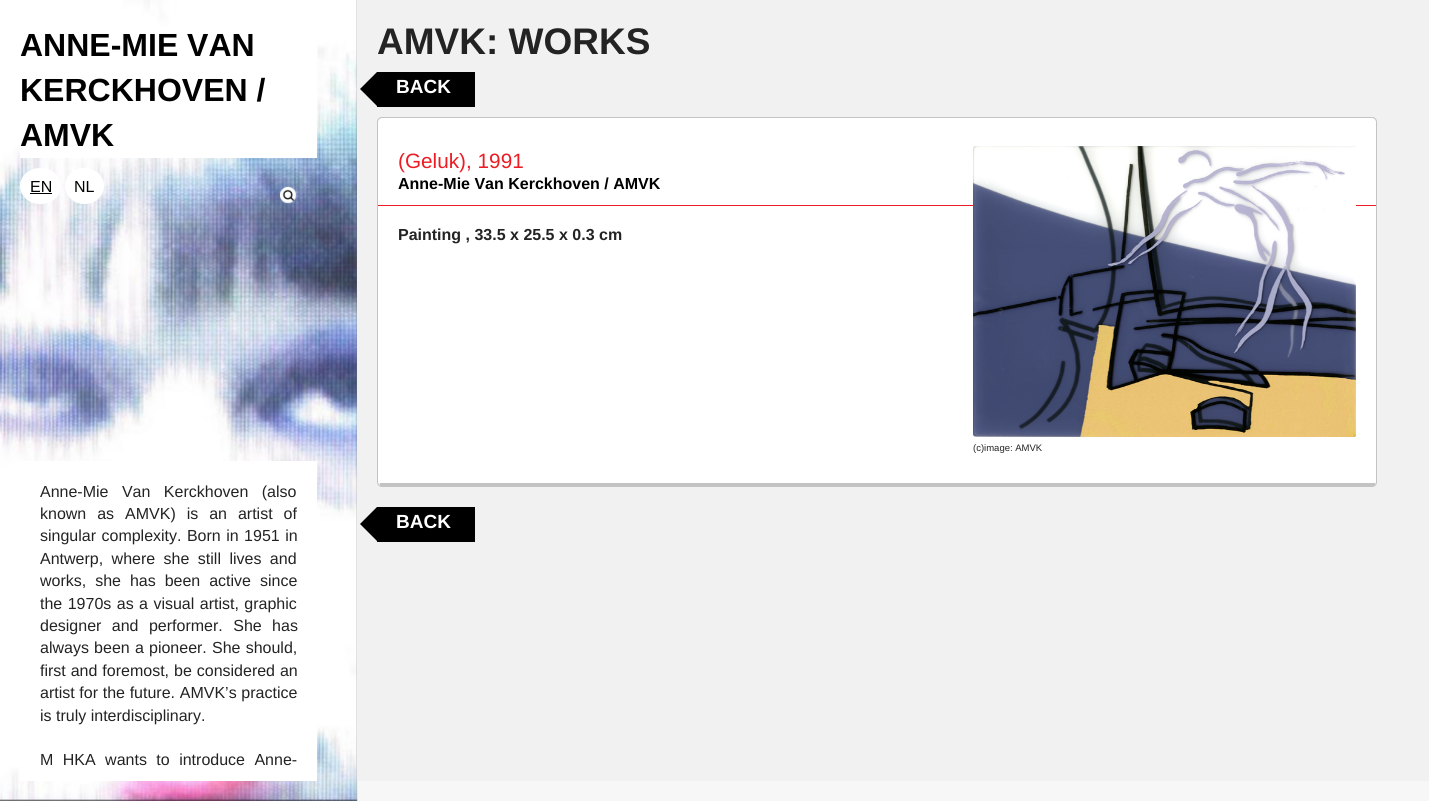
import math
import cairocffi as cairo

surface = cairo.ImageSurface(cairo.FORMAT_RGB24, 1429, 801)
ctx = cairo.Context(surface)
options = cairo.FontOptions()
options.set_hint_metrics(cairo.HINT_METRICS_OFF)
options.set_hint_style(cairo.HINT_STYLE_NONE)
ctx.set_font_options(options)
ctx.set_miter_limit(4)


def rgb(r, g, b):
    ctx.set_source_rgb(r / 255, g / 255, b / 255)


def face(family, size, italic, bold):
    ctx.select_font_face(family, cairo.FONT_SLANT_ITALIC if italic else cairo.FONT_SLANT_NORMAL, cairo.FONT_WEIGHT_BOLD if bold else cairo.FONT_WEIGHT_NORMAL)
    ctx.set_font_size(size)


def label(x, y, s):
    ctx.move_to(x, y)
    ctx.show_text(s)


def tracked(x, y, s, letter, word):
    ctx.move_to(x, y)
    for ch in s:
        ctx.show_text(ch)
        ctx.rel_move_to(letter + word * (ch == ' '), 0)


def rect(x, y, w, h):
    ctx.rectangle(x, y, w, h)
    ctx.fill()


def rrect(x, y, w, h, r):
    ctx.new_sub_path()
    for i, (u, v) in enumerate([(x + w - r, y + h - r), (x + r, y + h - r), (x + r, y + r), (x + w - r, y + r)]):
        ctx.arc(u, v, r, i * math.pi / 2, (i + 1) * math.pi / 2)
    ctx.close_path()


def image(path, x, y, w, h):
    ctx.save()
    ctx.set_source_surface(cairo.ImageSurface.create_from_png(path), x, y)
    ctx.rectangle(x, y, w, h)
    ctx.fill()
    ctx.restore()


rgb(247, 247, 247)
ctx.paint()
rgb(128, 128, 128)
rect(0, 0, 357, 801)
image('image0.png', 0, 0, 358, 801)
rgb(255, 255, 255)
rect(20, 30, 297, 128)
face('Liberation Sans', 32, 0, 1)
rgb(0, 0, 0)
label(20, 56, 'ANNE-MIE VAN')
label(20, 101, 'KERCKHOVEN /')
label(20, 146, 'AMVK')
rgb(255, 255, 255)
ctx.new_path()
ctx.move_to(40.5, 168)
ctx.curve_to(52, 168, 61, 176, 61, 186)
ctx.curve_to(61, 196, 52, 204, 40.5, 204)
ctx.curve_to(29, 204, 20, 196, 20, 186)
ctx.curve_to(20, 176, 29, 168, 40.5, 168)
ctx.close_path()
ctx.fill()
face('Liberation Sans', 16, 0, 0)
rgb(0, 0, 0)
label(30, 192, 'EN')
rect(30, 193, 22, 1)
rgb(255, 255, 255)
ctx.new_path()
ctx.move_to(84.5, 168)
ctx.curve_to(95.5, 168, 104, 176, 104, 186)
ctx.curve_to(104, 196, 95.5, 204, 84.5, 204)
ctx.curve_to(73.5, 204, 65, 196, 65, 186)
ctx.curve_to(65, 176, 73.5, 168, 84.5, 168)
ctx.close_path()
ctx.fill()
rgb(0, 0, 0)
label(74, 192, 'NL')
image('image1.png', 280, 187, 17, 17)
rgb(255, 255, 255)
rect(20, 461, 297, 320)
rgb(35, 35, 35)
tracked(40, 497, 'Anne-Mie Van Kerckhoven (also', 0, 9)
tracked(40, 519, 'known as AMVK) is an artist of', 0, 6.5)
tracked(40, 541, 'singular complexity. Born in 1951 in', 0, 1)
tracked(40, 564, 'Antwerp, where she still lives and', 0, 4)
tracked(40, 586, 'works, she has been active since', 0, 4.5)
tracked(40, 609, 'the 1970s as a visual artist, graphic', 0, 1)
tracked(40, 631, 'designer and performer. She has', 0, 6)
tracked(40, 653, 'always been a pioneer. She should,', 0, 0.75)
tracked(40, 676, 'first and foremost, be considered an', 0, 0.5)
tracked(40, 698, 'artist for the future. AMVK’s practice', 0, 0.25)
label(40, 721, 'is truly interdisciplinary.')
tracked(40, 765, 'M HKA wants to introduce Anne-', 0, 5)
rgb(241, 241, 241)
rect(357, 0, 1072, 781)
face('Liberation Sans', 37, 0, 1)
rgb(35, 35, 35)
label(377, 54, 'AMVK: WORKS')
rgb(0, 0, 0)
rect(377, 72, 98, 35)
ctx.new_path()
ctx.move_to(377, 72)
ctx.line_to(377, 106)
ctx.line_to(360, 89)
ctx.close_path()
ctx.fill()
face('Liberation Sans', 19, 0, 1)
rgb(255, 255, 255)
label(396, 93, 'BACK')
ctx.new_path()
ctx.move_to(382, 118)
ctx.line_to(1372, 118)
ctx.curve_to(1374, 118, 1376, 120, 1376, 122)
ctx.line_to(1376, 482)
ctx.curve_to(1376, 483, 1374, 483, 1372, 483)
ctx.line_to(382, 483)
ctx.curve_to(380, 483, 378, 483, 378, 482)
ctx.line_to(378, 122)
ctx.curve_to(378, 120, 380, 118, 382, 118)
ctx.close_path()
ctx.fill()
rrect(377.5, 117.5, 999, 369, 4.5)
rgb(195, 195, 195)
ctx.set_line_width(1)
ctx.stroke()
rect(380, 483, 995, 3)
rgb(236, 28, 36)
rect(378, 205, 998, 1)
face('Liberation Sans', 20.75, 0, 0)
label(398, 168, '(Geluk), 1991')
face('Liberation Sans', 16, 0, 1)
rgb(0, 0, 0)
label(398, 189, 'Anne-Mie Van Kerckhoven / AMVK')
rgb(35, 35, 35)
label(398, 240, 'Painting , 33.5 x 25.5 x 0.3 cm')
image('image2.png', 973, 146, 383, 291)
face('Liberation Sans', 9.5, 0, 0)
label(973, 451, '(c)image: AMVK')
rgb(0, 0, 0)
rect(377, 507, 98, 35)
ctx.new_path()
ctx.move_to(377, 507)
ctx.line_to(377, 541)
ctx.line_to(360, 524)
ctx.close_path()
ctx.fill()
face('Liberation Sans', 19, 0, 1)
rgb(255, 255, 255)
label(396, 528, 'BACK')
surface.write_to_png('render.png')
